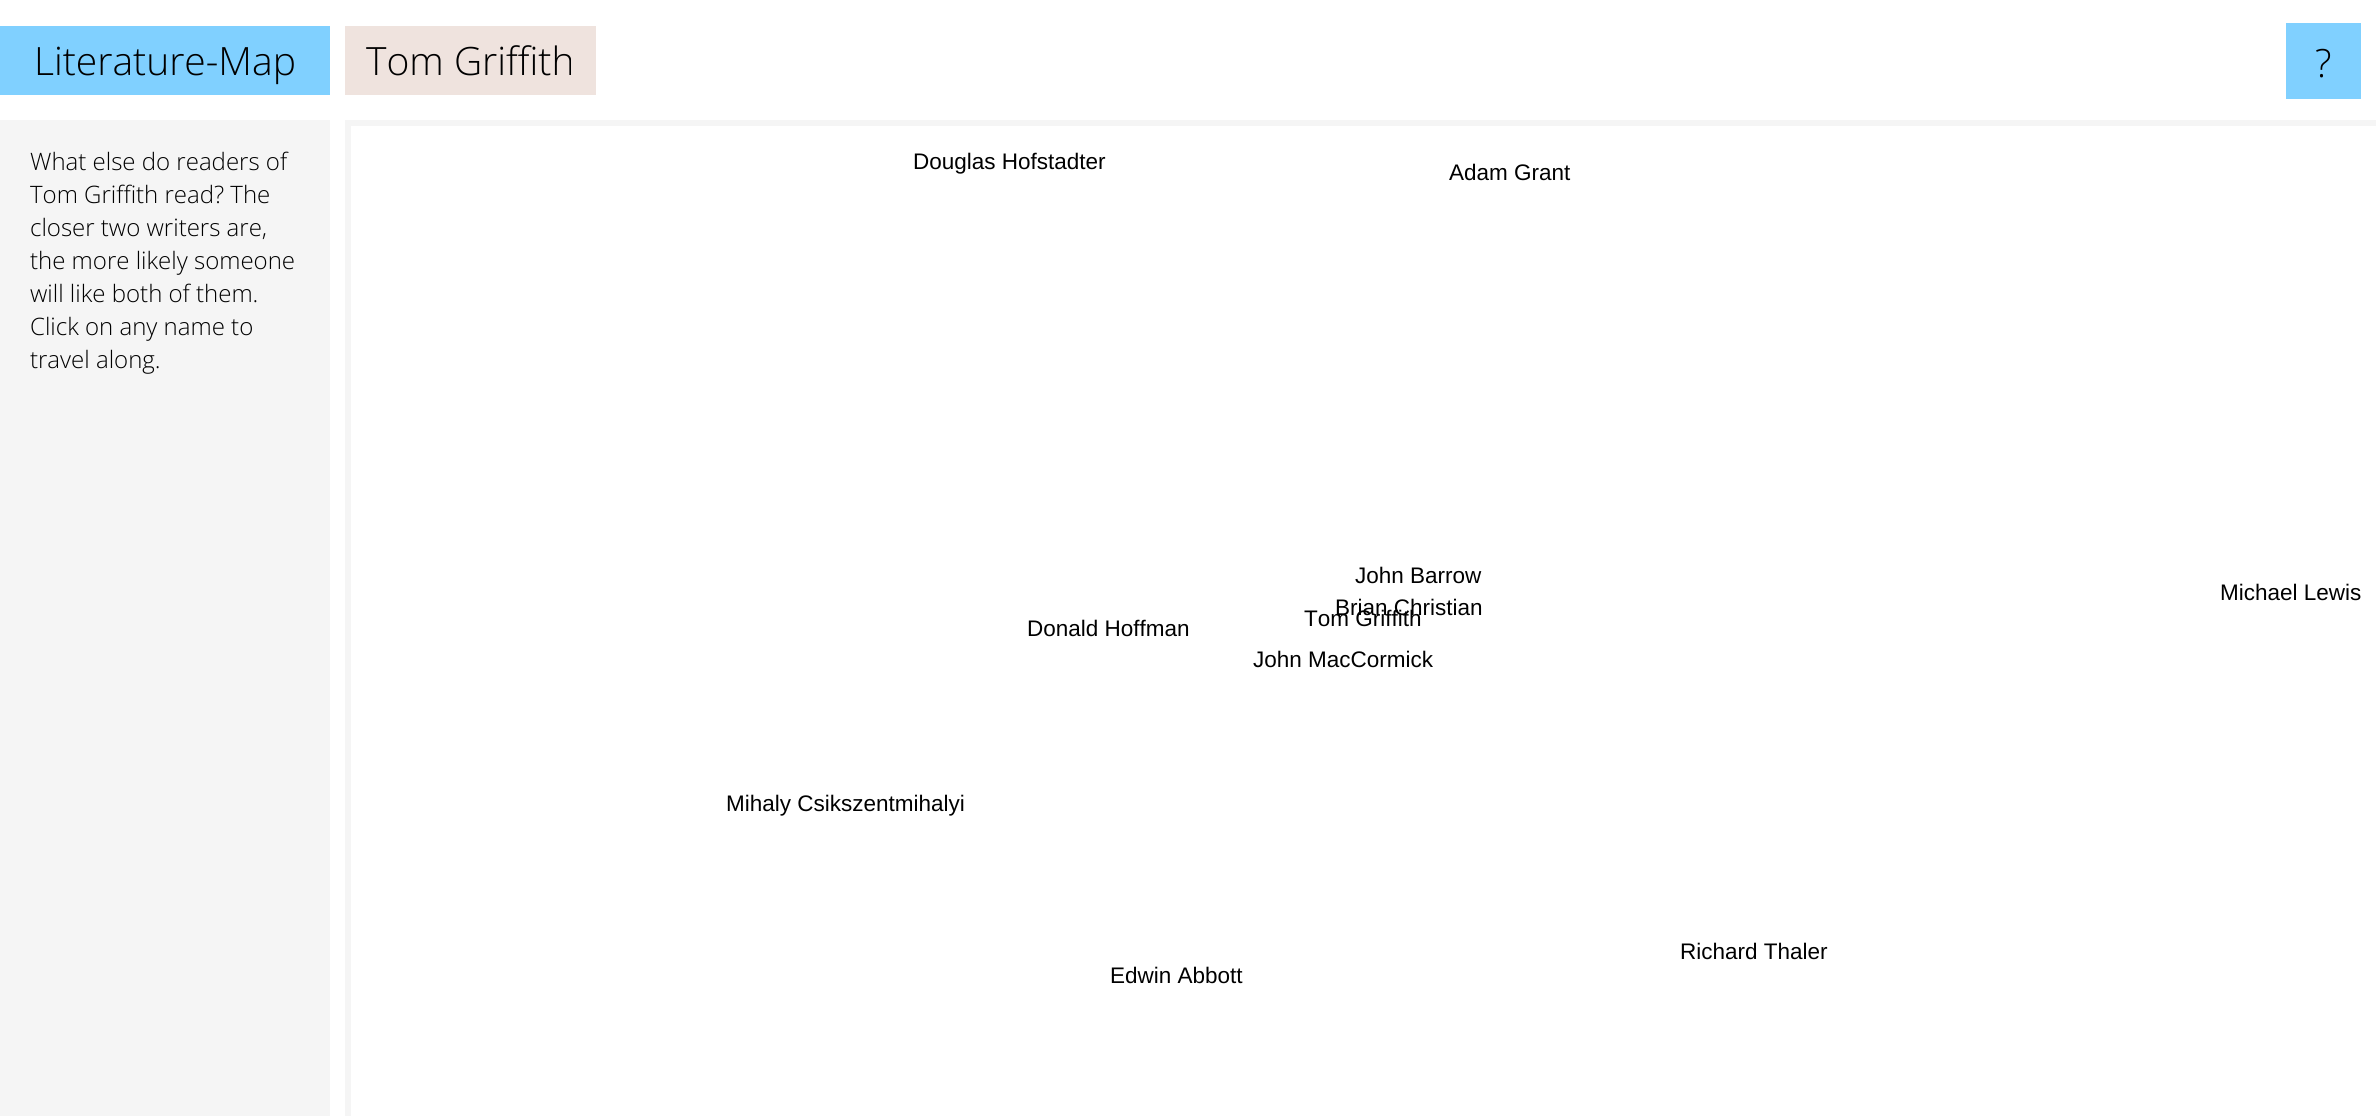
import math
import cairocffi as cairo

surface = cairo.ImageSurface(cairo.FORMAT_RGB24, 2376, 1116)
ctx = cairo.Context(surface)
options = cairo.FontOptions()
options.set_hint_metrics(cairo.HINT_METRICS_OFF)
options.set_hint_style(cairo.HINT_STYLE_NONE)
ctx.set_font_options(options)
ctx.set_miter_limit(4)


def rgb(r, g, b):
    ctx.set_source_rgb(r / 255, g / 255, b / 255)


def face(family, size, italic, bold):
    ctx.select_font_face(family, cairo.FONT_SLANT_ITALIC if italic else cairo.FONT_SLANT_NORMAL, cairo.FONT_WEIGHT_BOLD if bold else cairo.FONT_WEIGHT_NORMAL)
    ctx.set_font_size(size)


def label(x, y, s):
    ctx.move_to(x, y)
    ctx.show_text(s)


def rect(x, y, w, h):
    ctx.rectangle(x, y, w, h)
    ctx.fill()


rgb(255, 255, 255)
ctx.paint()
rgb(128, 208, 255)
rect(0, 26, 330, 69)
face('Open Sans Light', 39, 0, 0)
rgb(0, 0, 0)
label(34, 75, 'Literature-Map')
rgb(239, 227, 222)
rect(345, 26, 251, 69)
rgb(0, 0, 0)
label(366, 75, 'Tom Griffith')
rgb(128, 208, 255)
rect(2286, 23, 75, 76)
rgb(0, 0, 0)
label(2315, 77, '?')
rgb(245, 245, 245)
rect(0, 120, 330, 996)
face('Open Sans Light', 24, 0, 0)
rgb(0, 0, 0)
label(30, 170, 'What else do readers of')
label(30, 203, 'Tom Griffith read? The')
label(30, 236, 'closer two writers are,')
label(30, 269, 'the more likely someone')
label(30, 302, 'will like both of them.')
label(30, 335, 'Click on any name to')
label(30, 368, 'travel along.')
ctx.save()
ctx.rectangle(345, 120, 2031, 996)
ctx.clip()
rgb(245, 245, 245)
ctx.set_fill_rule(cairo.FILL_RULE_EVEN_ODD)
ctx.new_path()
ctx.move_to(196, -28)
ctx.line_to(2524, -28)
ctx.line_to(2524, 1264)
ctx.line_to(196, 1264)
ctx.close_path()
ctx.move_to(351, 126)
ctx.line_to(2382, 126)
ctx.line_to(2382, 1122)
ctx.line_to(351, 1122)
ctx.close_path()
ctx.fill()
ctx.restore()
face('Liberation Sans', 22.5, 0, 0)
label(913, 169, 'Douglas Hofstadter')
label(1449, 180, 'Adam Grant')
label(1355, 583, 'John Barrow')
label(2220, 600, 'Michael Lewis')
label(1335, 615, 'Brian Christian')
label(1027, 636, 'Donald Hoffman')
label(1304, 626, 'Tom Griffith')
label(1253, 667, 'John MacCormick')
label(726, 811, 'Mihaly Csikszentmihalyi')
label(1680, 959, 'Richard Thaler')
label(1110, 983, 'Edwin Abbott')
surface.write_to_png('render.png')
